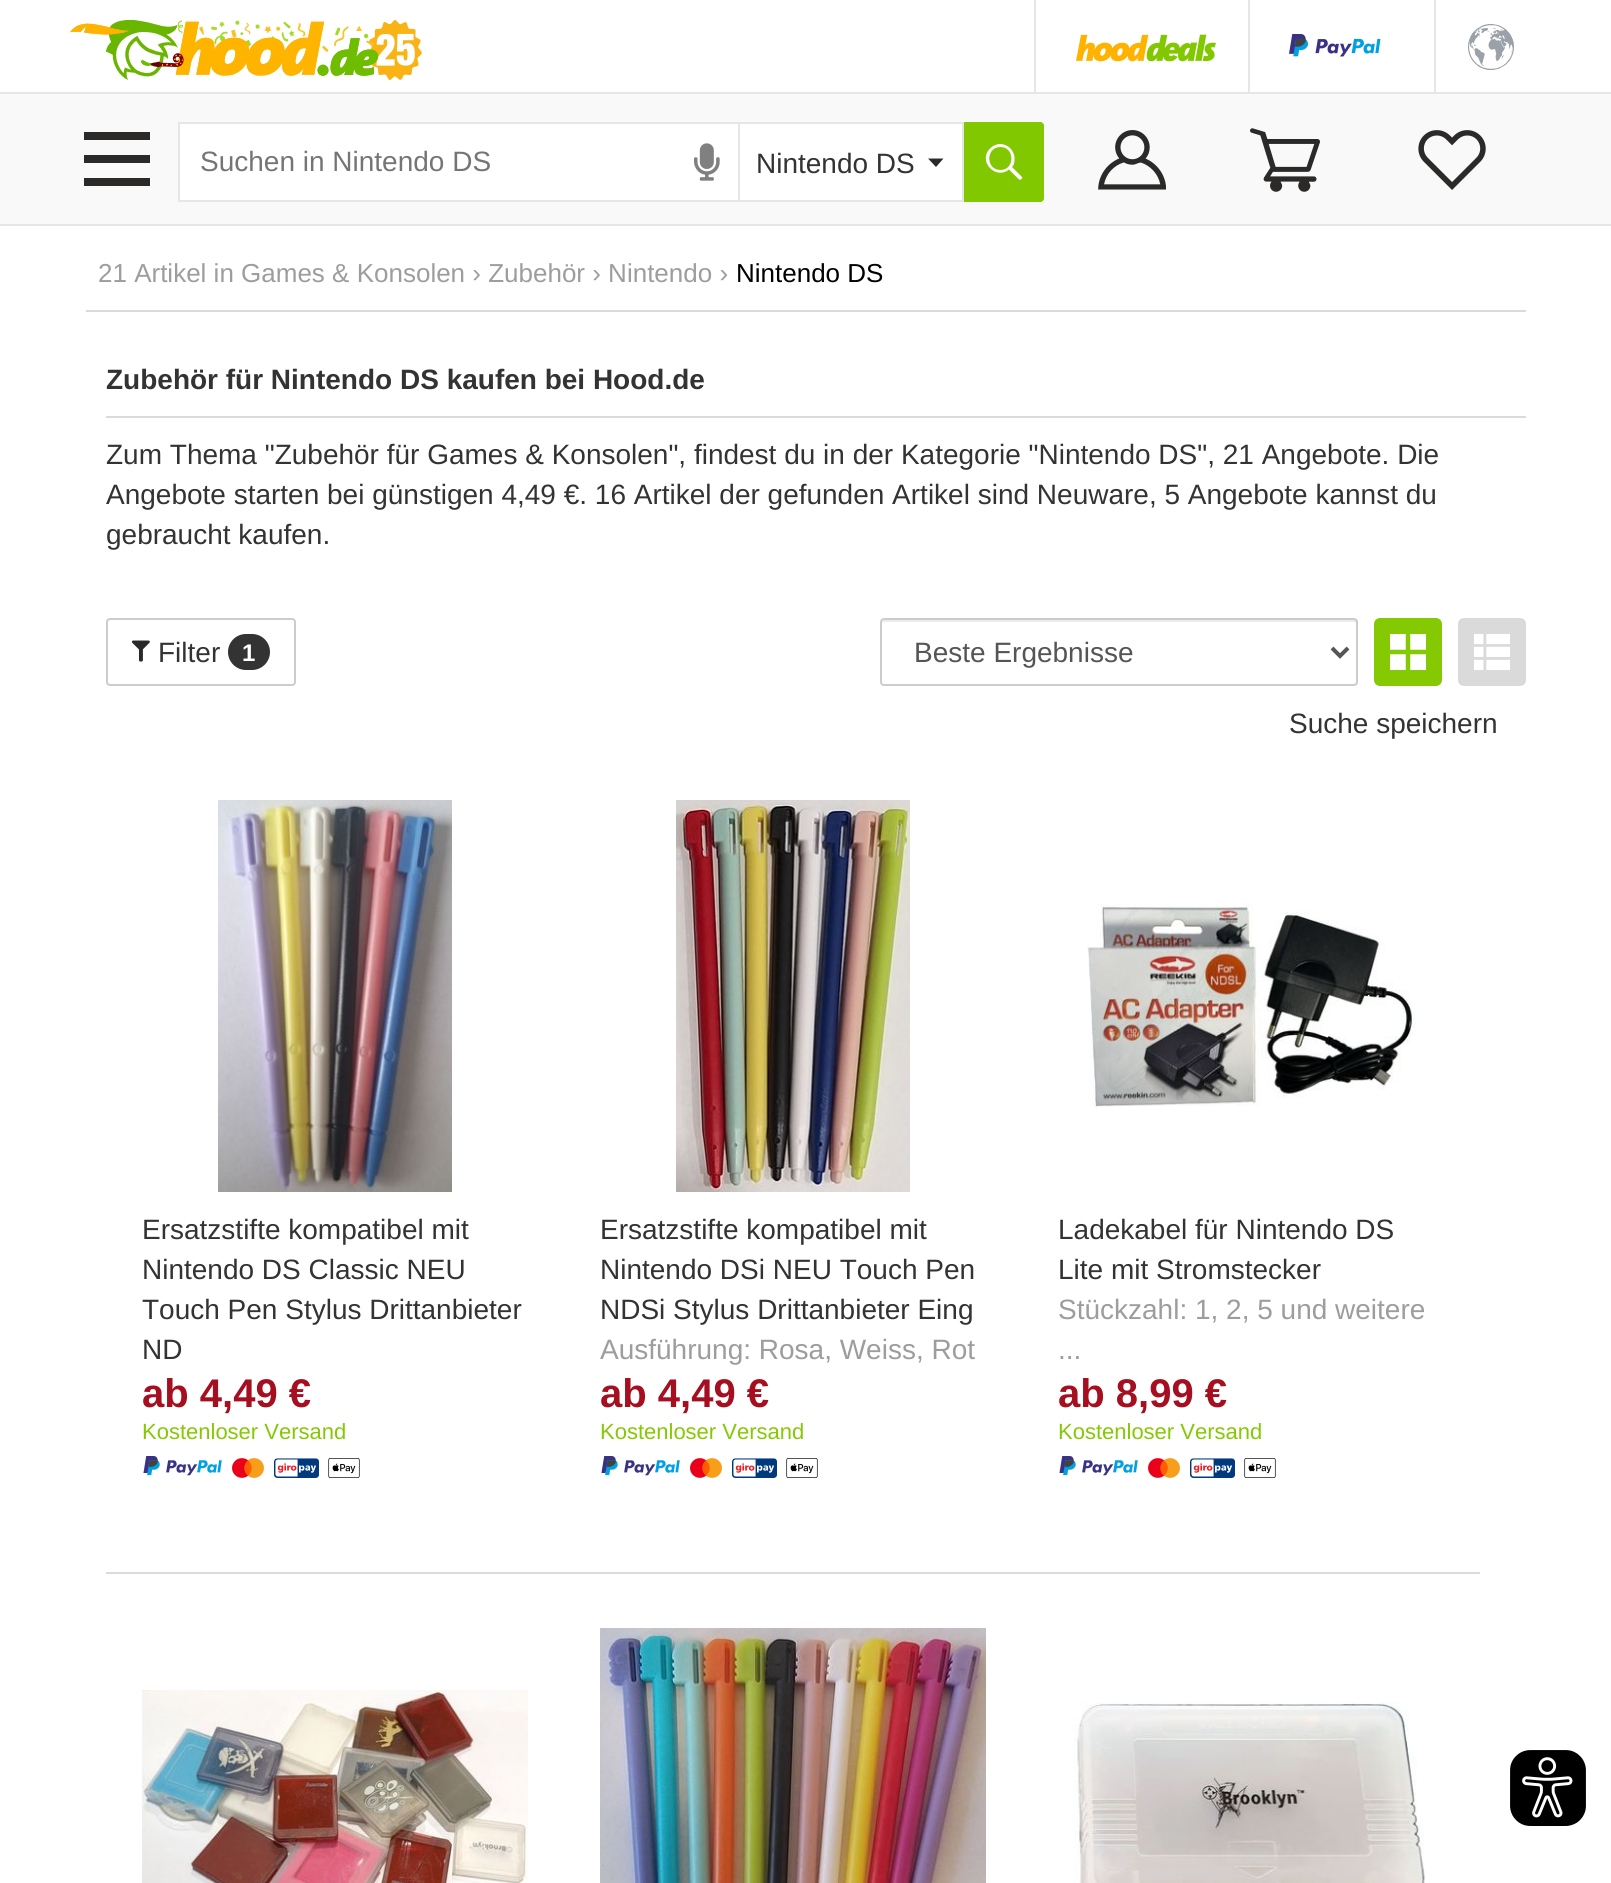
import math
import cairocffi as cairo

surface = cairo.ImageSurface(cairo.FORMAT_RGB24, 1611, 1883)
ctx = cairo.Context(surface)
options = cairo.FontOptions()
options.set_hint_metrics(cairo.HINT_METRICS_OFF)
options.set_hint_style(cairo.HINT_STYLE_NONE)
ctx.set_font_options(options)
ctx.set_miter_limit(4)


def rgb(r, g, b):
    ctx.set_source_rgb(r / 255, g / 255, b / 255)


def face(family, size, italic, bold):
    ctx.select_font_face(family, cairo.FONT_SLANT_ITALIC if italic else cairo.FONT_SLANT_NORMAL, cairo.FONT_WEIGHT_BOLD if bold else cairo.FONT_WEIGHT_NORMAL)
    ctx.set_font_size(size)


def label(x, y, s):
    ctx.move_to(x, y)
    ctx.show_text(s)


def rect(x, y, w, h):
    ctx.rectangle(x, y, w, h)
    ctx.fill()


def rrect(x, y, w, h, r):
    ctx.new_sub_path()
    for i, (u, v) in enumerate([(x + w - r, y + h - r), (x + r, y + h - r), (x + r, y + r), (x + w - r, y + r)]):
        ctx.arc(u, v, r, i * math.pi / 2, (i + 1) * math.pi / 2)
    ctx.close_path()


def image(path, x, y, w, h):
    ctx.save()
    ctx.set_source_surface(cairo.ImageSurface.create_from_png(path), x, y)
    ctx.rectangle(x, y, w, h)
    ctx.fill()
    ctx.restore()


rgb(255, 255, 255)
ctx.paint()
image('image1.png', 369, 20, 53, 60)
image('image0.png', 70, 20, 308, 60)
rgb(230, 230, 230)
rect(1034, 0, 2, 92)
image('image2.png', 1076, 34, 140, 28)
rect(1248, 0, 2, 92)
image('image3.png', 1289, 34, 92, 23)
rect(1434, 0, 2, 92)
image('image4.png', 1468, 24, 46, 46)
rgb(249, 249, 249)
rect(0, 94, 1611, 130)
rgb(230, 230, 230)
rect(0, 92, 1611, 2)
rect(0, 224, 1611, 2)
rgb(43, 42, 41)
rect(84, 132, 66, 8)
rect(84, 155, 66, 8)
rect(84, 178, 66, 8)
rgb(255, 255, 255)
ctx.rectangle(179, 123, 560, 78)
ctx.fill_preserve()
rgb(230, 230, 230)
ctx.stroke()
face('Liberation Sans', 28, 0, 0)
rgb(117, 117, 117)
label(200, 171, 'Suchen in Nintendo DS')
image('image5.png', 694, 143, 26, 38)
rgb(255, 255, 255)
rect(740, 124, 222, 76)
rgb(230, 230, 230)
rect(740, 122, 224, 2)
rect(962, 122, 2, 80)
rect(740, 200, 224, 2)
rgb(43, 42, 41)
ctx.set_fill_rule(cairo.FILL_RULE_EVEN_ODD)
ctx.new_path()
ctx.move_to(943.5, 158.5)
ctx.line_to(936, 167)
ctx.line_to(928, 158.5)
ctx.close_path()
ctx.fill()
rgb(51, 51, 51)
label(756, 173, 'Nintendo DS')
rgb(130, 200, 0)
ctx.new_path()
ctx.move_to(964, 122)
ctx.line_to(1040, 122)
ctx.curve_to(1042, 122, 1044, 124, 1044, 126)
ctx.line_to(1044, 198)
ctx.curve_to(1044, 200, 1042, 202, 1040, 202)
ctx.line_to(964, 202)
ctx.close_path()
ctx.fill()
rgb(254, 254, 254)
ctx.new_path()
ctx.move_to(1000, 144)
ctx.curve_to(1008, 144, 1014.5, 150.5, 1014.5, 158.5)
ctx.curve_to(1014.5, 161.5, 1014.5, 164.5, 1012, 167)
ctx.line_to(1021.5, 176.5)
ctx.curve_to(1022.5, 177, 1022.5, 178.5, 1021.5, 179)
ctx.curve_to(1020.5, 180, 1019.5, 180, 1018.5, 179)
ctx.line_to(1009, 169.5)
ctx.curve_to(995.5, 180.5, 977.5, 161, 990, 148.5)
ctx.curve_to(993, 145.5, 996.5, 144, 1000.5, 144)
ctx.move_to(1000.5, 147)
ctx.curve_to(1015, 147, 1015, 170, 1000.5, 170)
ctx.curve_to(985.5, 170, 985.5, 147, 1000.5, 147)
ctx.fill()
ctx.new_path()
ctx.move_to(965, 123)
ctx.line_to(1040, 123)
ctx.curve_to(1041.5, 123, 1043, 124.5, 1043, 126)
ctx.line_to(1043, 198)
ctx.curve_to(1043, 199.5, 1041.5, 201, 1040, 201)
ctx.line_to(965, 201)
ctx.close_path()
rgb(130, 200, 0)
ctx.stroke()
image('image6.png', 1098, 130, 68, 60)
image('image7.png', 1250, 128, 70, 64)
image('image8.png', 1418, 130, 68, 60)
rgb(218, 218, 218)
rect(86, 310, 1440, 2)
face('Liberation Sans', 26, 0, 0)
rgb(157, 157, 157)
label(98, 282, '21 Artikel in Games & Konsolen › Zubehör › Nintendo ›')
rgb(0, 0, 0)
label(736, 282, 'Nintendo DS')
rgb(218, 218, 218)
rect(106, 416, 1420, 2)
face('Liberation Sans', 28, 0, 1)
rgb(51, 51, 51)
label(106, 389, 'Zubehör für Nintendo DS kaufen bei Hood.de')
face('Liberation Sans', 28, 0, 0)
label(106, 464, 'Zum Thema "Zubehör für Games & Konsolen", findest du in der Kategorie "Nintendo DS", 21 Angebote. Die')
label(106, 504, 'Angebote starten bei günstigen 4,49 €. 16 Artikel der gefunden Artikel sind Neuware, 5 Angebote kannst du')
label(106, 544, 'gebraucht kaufen.')
rrect(107, 619, 188, 66, 3)
rgb(204, 204, 204)
ctx.stroke()
image('image9.png', 132, 640, 18, 22)
rgb(51, 51, 51)
label(158, 662, 'Filter')
rrect(228, 634, 42, 36, 18)
ctx.fill()
face('Liberation Sans', 24, 0, 1)
rgb(255, 255, 255)
label(242, 661, '1')
rgb(236, 236, 236)
ctx.set_fill_rule(cairo.FILL_RULE_WINDING)
ctx.new_path()
ctx.move_to(884, 622)
ctx.line_to(1354, 622)
ctx.curve_to(1355, 622, 1356, 623, 1356, 624)
ctx.line_to(1356, 621)
ctx.line_to(1355, 620)
ctx.line_to(884, 620)
ctx.curve_to(882, 620, 882, 622, 882, 624)
ctx.curve_to(882, 623, 883, 622, 884, 622)
ctx.close_path()
ctx.fill()
rrect(881, 619, 476, 66, 3)
rgb(204, 204, 204)
ctx.stroke()
ctx.new_path()
ctx.move_to(1332, 648)
ctx.line_to(1340, 656)
ctx.line_to(1348, 648)
rgb(85, 85, 85)
ctx.set_line_width(4)
ctx.stroke()
face('Liberation Sans', 28, 0, 0)
label(914, 662, 'Beste Ergebnisse')
rgb(133, 201, 3)
rrect(1374, 618, 68, 68, 6)
ctx.fill()
rgb(218, 218, 218)
rrect(1458, 618, 68, 68, 6)
ctx.fill()
image('image10.png', 1390, 634, 36, 36)
image('image11.png', 1474, 634, 36, 36)
rgb(51, 51, 51)
label(1289, 733, 'Suche speichern')
rgb(218, 218, 218)
rect(106, 1572, 1374, 2)
image('image12.png', 218, 800, 234, 392)
rgb(51, 51, 51)
label(142, 1239, 'Ersatzstifte kompatibel mit')
label(142, 1279, 'Nintendo DS Classic NEU')
label(142, 1319, 'Touch Pen Stylus Drittanbieter')
label(142, 1359, 'ND')
face('Liberation Sans', 40, 0, 1)
rgb(165, 15, 31)
label(142, 1407, 'ab 4,49 €')
face('Liberation Sans', 22, 0, 0)
rgb(133, 201, 3)
label(142, 1439, 'Kostenloser Versand')
image('image13.png', 143, 1456, 79, 20)
image('image14.png', 232, 1458, 32, 20)
image('image15.png', 274, 1458, 45, 20)
image('image16.png', 328, 1458, 32, 20)
image('image17.png', 676, 800, 234, 392)
face('Liberation Sans', 28, 0, 0)
rgb(51, 51, 51)
label(600, 1239, 'Ersatzstifte kompatibel mit')
label(600, 1279, 'Nintendo DSi NEU Touch Pen')
label(600, 1319, 'NDSi Stylus Drittanbieter Eing')
rgb(157, 157, 157)
label(600, 1359, 'Ausführung: Rosa, Weiss, Rot')
face('Liberation Sans', 40, 0, 1)
rgb(165, 15, 31)
label(600, 1407, 'ab 4,49 €')
face('Liberation Sans', 22, 0, 0)
rgb(133, 201, 3)
label(600, 1439, 'Kostenloser Versand')
image('image13.png', 601, 1456, 79, 20)
image('image14.png', 690, 1458, 32, 20)
image('image15.png', 732, 1458, 45, 20)
image('image16.png', 786, 1458, 32, 20)
image('image18.png', 1087, 903, 329, 205)
face('Liberation Sans', 28, 0, 0)
rgb(51, 51, 51)
label(1058, 1239, 'Ladekabel für Nintendo DS')
label(1058, 1279, 'Lite mit Stromstecker')
rgb(157, 157, 157)
label(1058, 1319, 'Stückzahl: 1, 2, 5 und weitere')
label(1058, 1359, '...')
face('Liberation Sans', 40, 0, 1)
rgb(165, 15, 31)
label(1058, 1407, 'ab 8,99 €')
face('Liberation Sans', 22, 0, 0)
rgb(133, 201, 3)
label(1058, 1439, 'Kostenloser Versand')
image('image13.png', 1059, 1456, 79, 20)
image('image14.png', 1148, 1458, 32, 20)
image('image15.png', 1190, 1458, 45, 20)
image('image16.png', 1244, 1458, 32, 20)
image('image19.png', 142, 1690, 386, 193)
image('image20.png', 600, 1628, 386, 255)
image('image21.png', 1074, 1702, 351, 181)
image('image22.png', 1510, 1750, 76, 76)
surface.write_to_png('render.png')
